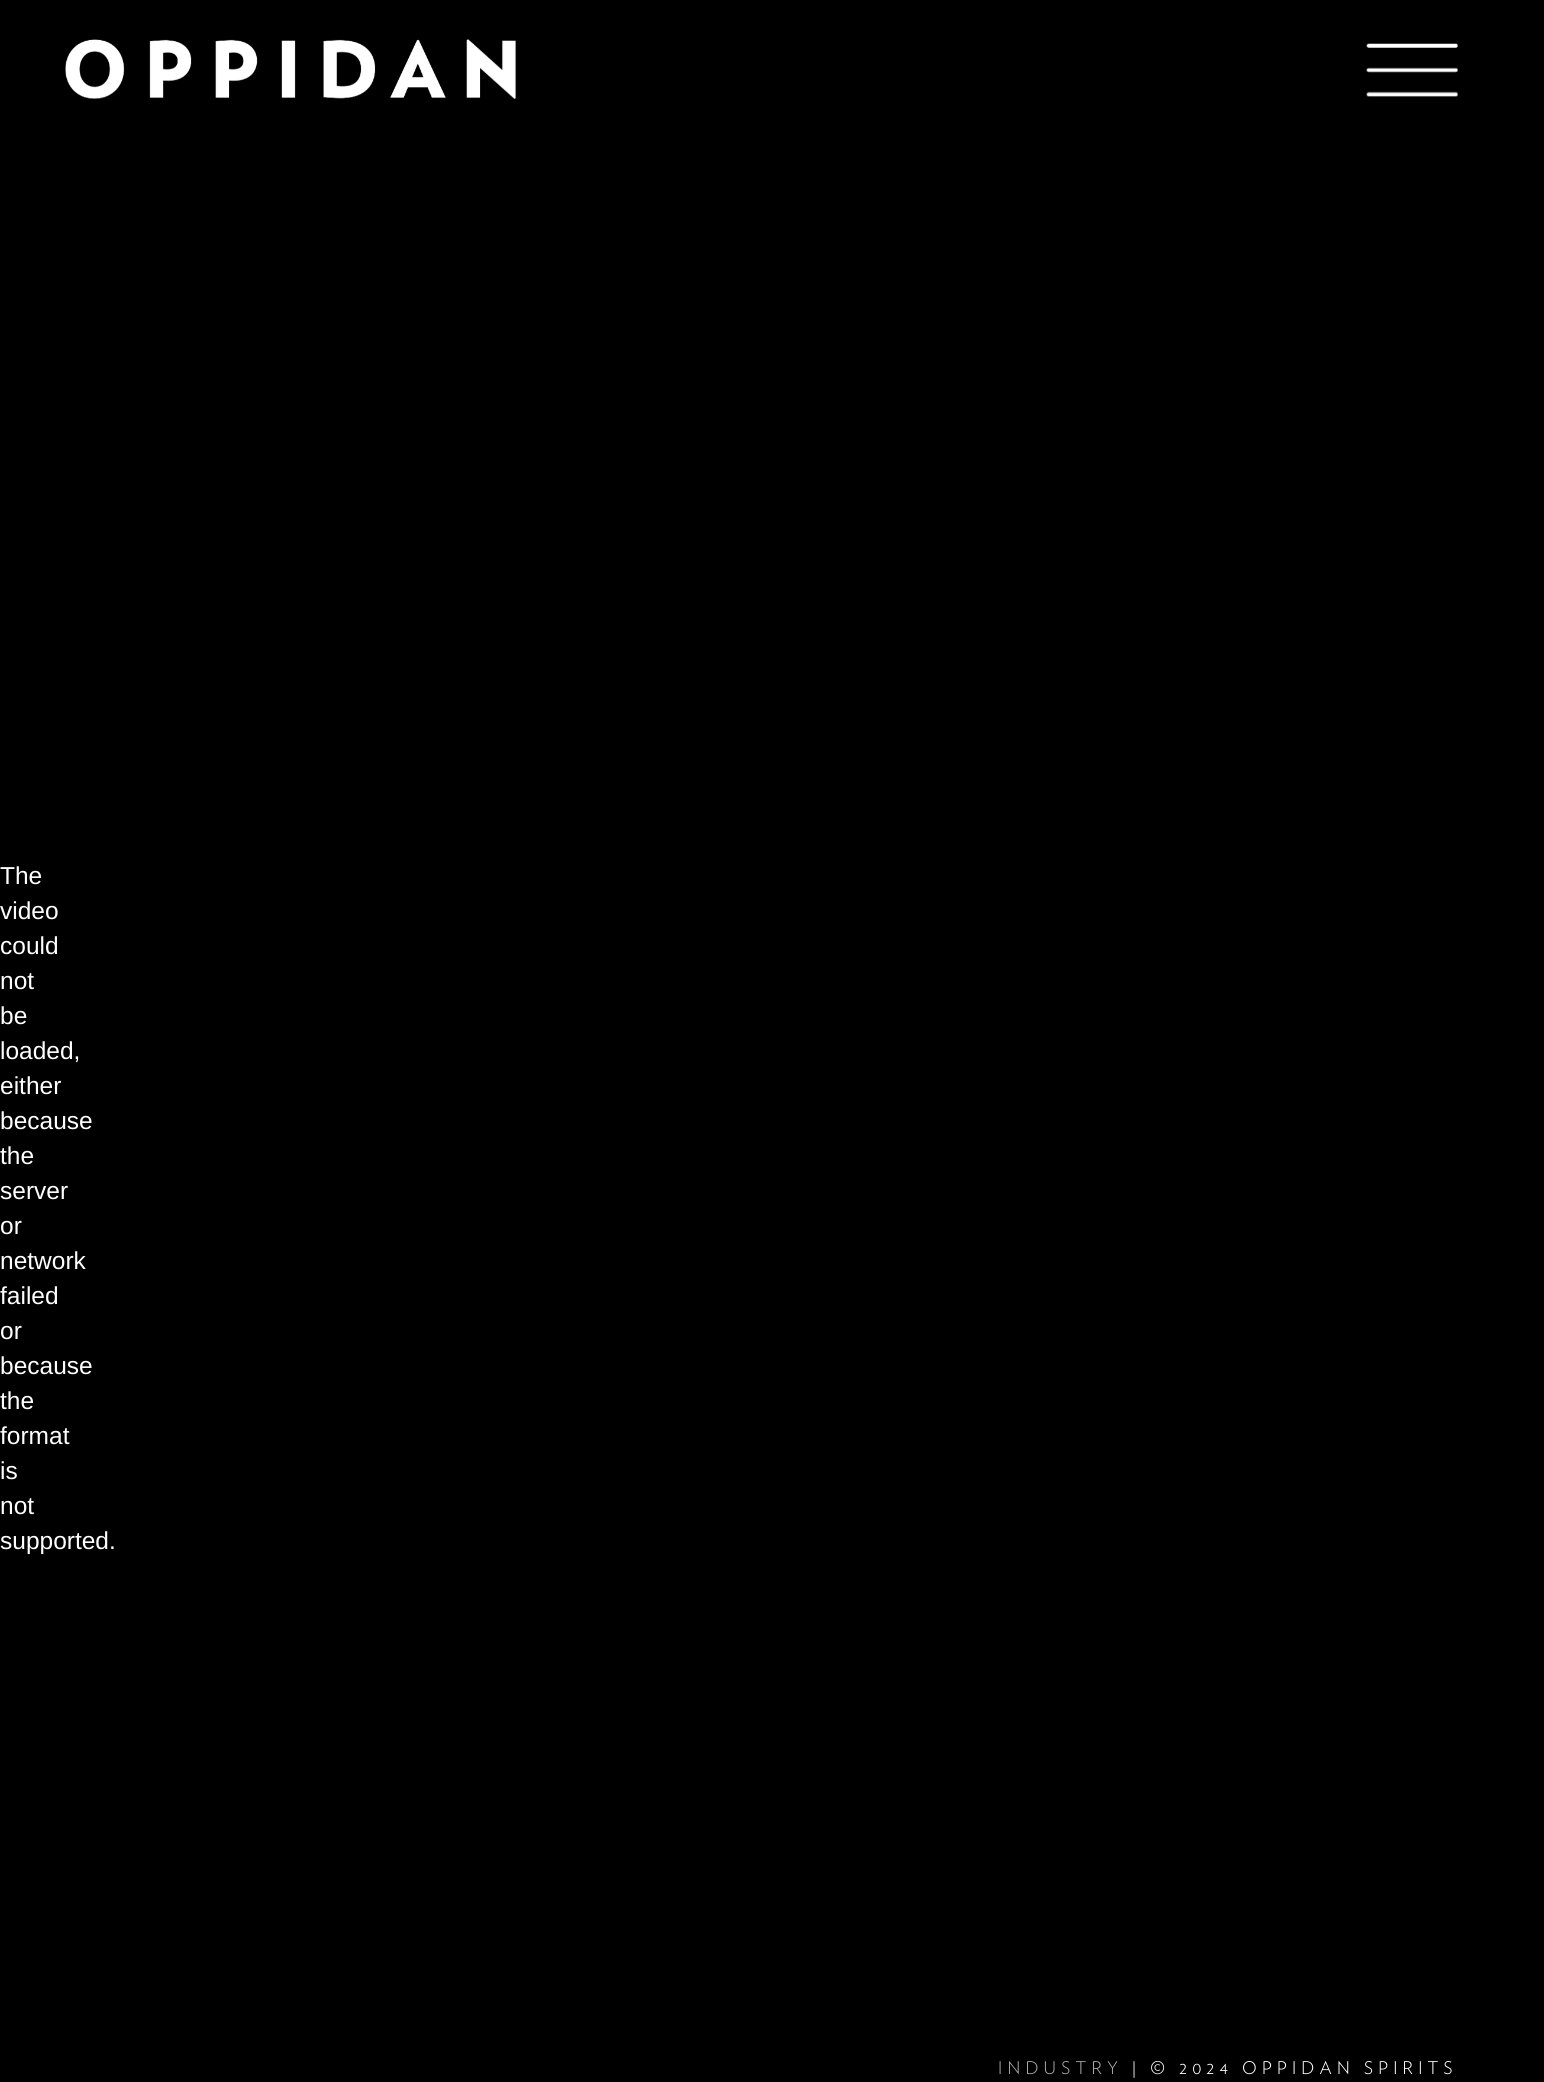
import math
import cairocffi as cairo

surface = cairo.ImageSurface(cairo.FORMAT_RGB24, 1544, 2082)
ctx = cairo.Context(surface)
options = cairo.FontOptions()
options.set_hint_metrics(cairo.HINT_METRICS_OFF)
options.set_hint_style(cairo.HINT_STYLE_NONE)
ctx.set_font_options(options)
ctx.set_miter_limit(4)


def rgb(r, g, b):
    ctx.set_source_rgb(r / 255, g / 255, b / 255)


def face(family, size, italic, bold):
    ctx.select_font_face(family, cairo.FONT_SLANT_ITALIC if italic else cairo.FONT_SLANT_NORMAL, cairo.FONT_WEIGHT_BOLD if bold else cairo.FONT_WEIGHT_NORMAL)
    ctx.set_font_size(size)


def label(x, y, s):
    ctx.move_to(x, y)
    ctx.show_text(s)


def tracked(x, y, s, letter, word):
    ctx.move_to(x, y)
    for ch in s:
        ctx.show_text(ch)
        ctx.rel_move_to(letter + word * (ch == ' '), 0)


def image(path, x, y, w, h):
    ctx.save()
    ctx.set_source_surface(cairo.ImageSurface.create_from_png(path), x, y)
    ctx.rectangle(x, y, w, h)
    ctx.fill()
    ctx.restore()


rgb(0, 0, 0)
ctx.paint()
face('Liberation Sans', 24.5, 0, 0)
rgb(255, 255, 255)
label(0, 884, 'The')
label(0, 919, 'video')
label(0, 954, 'could')
label(0, 989, 'not')
label(0, 1024, 'be')
label(0, 1059, 'loaded,')
label(0, 1094, 'either')
label(0, 1129, 'because')
label(0, 1164, 'the')
label(0, 1199, 'server')
label(0, 1234, 'or')
label(0, 1269, 'network')
label(0, 1304, 'failed')
label(0, 1339, 'or')
label(0, 1374, 'because')
label(0, 1409, 'the')
label(0, 1444, 'format')
label(0, 1479, 'is')
label(0, 1514, 'not')
label(0, 1549, 'supported.')
image('image0.png', 65, 39, 452, 60)
image('image1.png', 1366, 43, 92, 54)
face('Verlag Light', 17.5, 0, 0)
rgb(170, 170, 170)
tracked(998, 2074, 'INDUSTRY', 5.25, 0)
rgb(255, 255, 255)
tracked(1132, 2074, '| © 2024 OPPIDAN SPIRITS', 5.25, 0)
surface.write_to_png('render.png')
